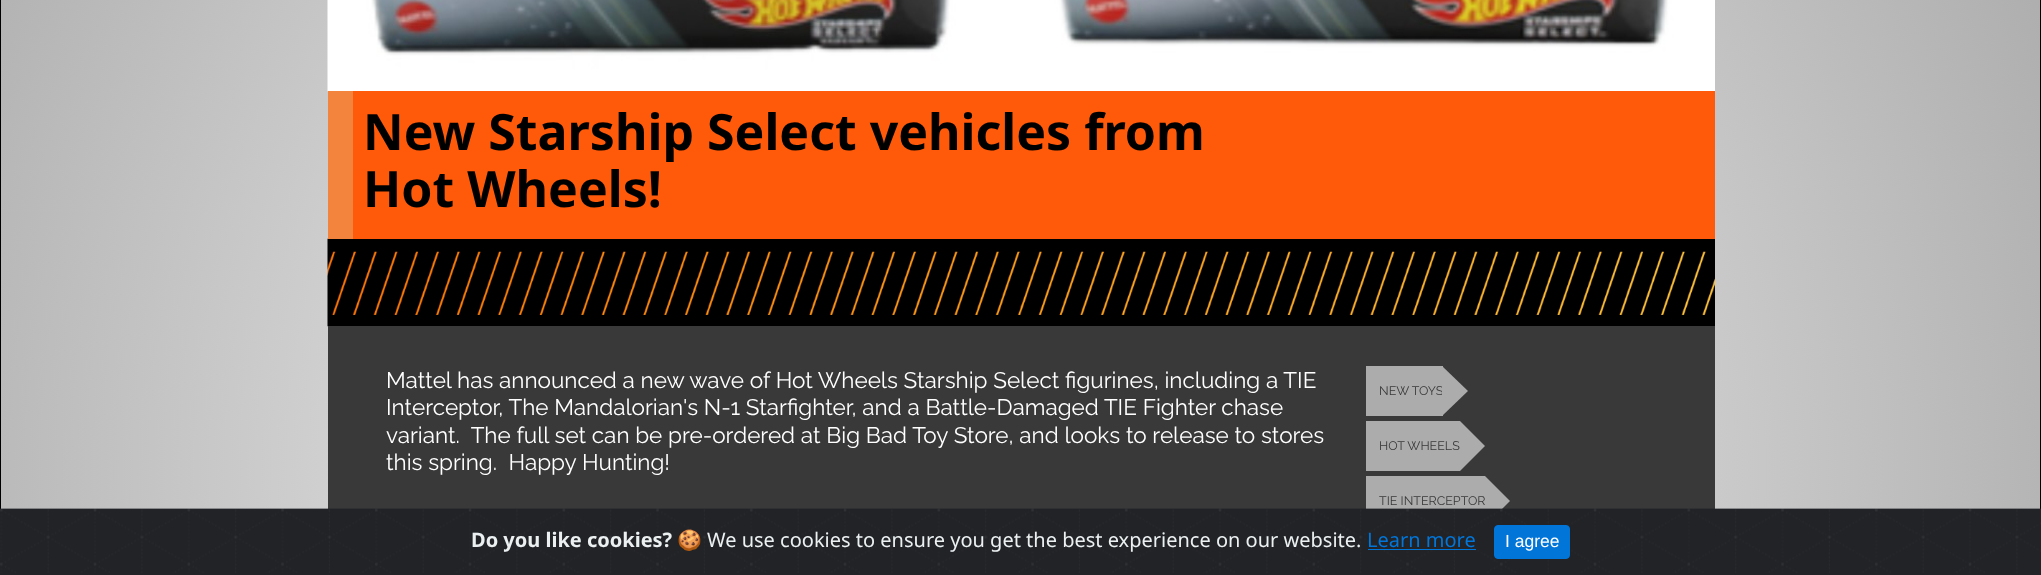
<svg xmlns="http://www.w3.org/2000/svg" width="2041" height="575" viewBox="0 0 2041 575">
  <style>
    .t1 { font: bold 50px Noto Sans; fill: #000; }
    .t2 { font: 22.5px Raleway; fill: #fff; }
    .t3 { font: 12.5px Raleway; fill: #393939; }
    .t4 { font: bold 20px Noto Sans; fill: #ecf0f1; }
    .t5 { font: 20px Noto Color Emoji; fill: #ecf0f1; }
    .t6 { font: 20px Noto Sans; fill: #ecf0f1; }
    .t7 { font: 20px Noto Sans; fill: #0275d8; }
    .t8 { font: 17.5px Liberation Sans; fill: #fff; }
  </style>
  <defs>
    <radialGradient id="g1" gradientUnits="userSpaceOnUse" cx="980" cy="466" r="1569"><stop offset="0" stop-color="#fafafa"/><stop offset="0.91" stop-color="#9d9d9d"/></radialGradient>
  </defs>
  <rect width="100%" height="100%" fill="#fff"/>
  <rect x="1" y="0" width="2039" height="509" fill="url(#g1)"/>
  <rect x="0.5" y="-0.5" width="2040" height="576" fill="none" stroke="#000"/>
  <image x="327" y="0" width="1388" height="92" href="images/1.png"/>
  <image x="327" y="238" width="1388" height="89" href="images/2.png"/>
  <rect x="353" y="91" width="1362" height="148" fill="#ff5a09"/>
  <rect x="328" y="91" width="25" height="148" fill="#f3843e"/>
  <text x="363" y="150" class="t1">New Starship Select vehicles from</text>
  <text x="363" y="207" class="t1">Hot Wheels!</text>
  <rect x="328" y="326" width="1387" height="183" fill="#393939"/>
  <text x="386" y="388" class="t2">Mattel has announced a new wave of Hot Wheels Starship Select figurines, including a TIE</text>
  <text x="386" y="415" class="t2">Interceptor, The Mandalorian's N-1 Starfighter, and a Battle-Damaged TIE Fighter chase</text>
  <text x="386" y="443" class="t2" xml:space="preserve">variant.  The full set can be pre-ordered at Big Bad Toy Store, and looks to release to stores</text>
  <text x="386" y="470" class="t2" xml:space="preserve">this spring.  Happy Hunting!</text>
  <rect x="1366" y="366" width="77" height="50" fill="#acacac"/>
  <text x="1379" y="395" class="t3">NEW TOYS</text>
  <path d="M1442 416V366L1468 391Z" fill="#acacac"/>
  <rect x="1366" y="421" width="94" height="50" fill="#acacac"/>
  <text x="1379" y="450" class="t3">HOT WHEELS</text>
  <path d="M1460 471V421L1485 446Z" fill="#acacac"/>
  <rect x="1366" y="476" width="119" height="33" fill="#acacac"/>
  <text x="1379" y="505" class="t3">TIE INTERCEPTOR</text>
  <path d="M1485 526V476L1510 501Z" fill="#acacac"/>
  <rect x="0" y="509" width="2041" height="66" fill="#212327"/>
  <image x="0" y="508" width="2041" height="65" href="images/3.png"/>
  <text x="471" y="547" class="t4">Do you like cookies?</text>
  <text x="677" y="547" class="t5">🍪</text>
  <text x="707" y="547" class="t6">We use cookies to ensure you get the best experience on our website.</text>
  <text x="1367" y="547" class="t7">Learn more</text>
  <rect x="1368" y="549" width="108" height="1" fill="#0275d8"/>
  <rect x="1494.5" y="525.5" width="75" height="33" rx="3.5" fill="#0275d8" stroke="#0275d8"/>
  <text x="1505" y="547" class="t8">I agree</text>
</svg>
